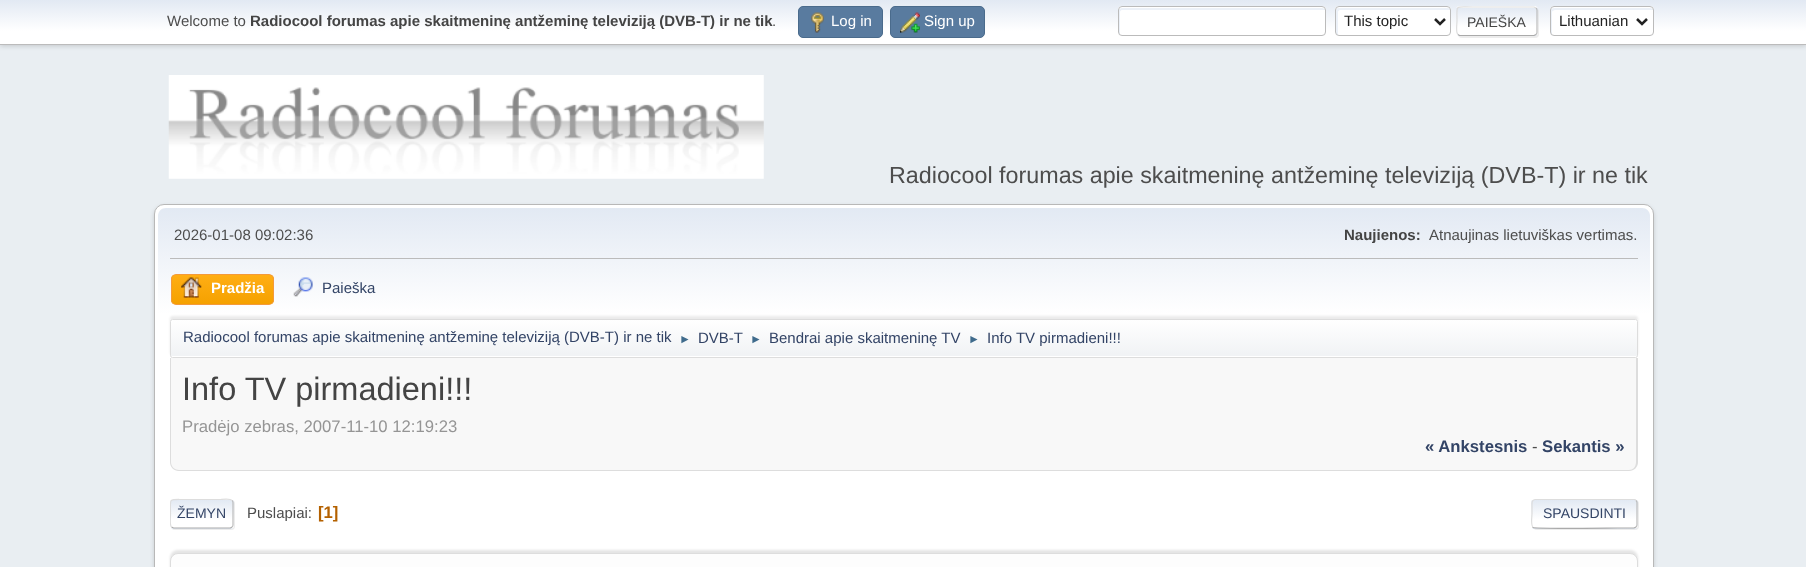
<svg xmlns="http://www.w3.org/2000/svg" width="1806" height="567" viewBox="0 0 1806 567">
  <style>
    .t1 { font: 15px Liberation Sans; fill: #4d4d4d; }
    .t2 { font: bold 15px Liberation Sans; fill: #444; }
    .t3 { font: 15px Liberation Sans; fill: #fff; }
    .t4 { font: 15px Liberation Sans; fill: #222; }
    .t5 { font: 14px Liberation Sans; fill: #444; }
    .t6 { font: 23.3px Liberation Sans; fill: #4d4d4d; }
    .t7 { font: bold 15px Liberation Sans; fill: #fff; }
    .t8 { font: 15px Liberation Sans; fill: #346; }
    .t9 { font: 12px Liberation Sans; fill: #3f6b8c; }
    .t10 { font: 32.5px Liberation Sans; fill: #444; }
    .t11 { font: 16.7px Liberation Sans; fill: #959595; }
    .t12 { font: bold 16.7px Liberation Sans; fill: #346; }
    .t13 { font: 16.7px Liberation Sans; fill: #4d4d4d; }
    .t14 { font: 14px Liberation Sans; fill: #346; }
    .t15 { font: bold 16.7px Liberation Sans; fill: #b46100; }
  </style>
  <defs>
    <linearGradient id="g1" gradientUnits="userSpaceOnUse" x1="903" y1="0" x2="903" y2="44"><stop offset="0" stop-color="#e2e9f3"/><stop offset="0.7" stop-color="#fff"/></linearGradient>
    <clipPath id="clip1"><rect x="1456" y="6" width="82" height="30" rx="4"/></clipPath>
    <linearGradient id="g2" gradientUnits="userSpaceOnUse" x1="1497" y1="-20" x2="1497" y2="7.5"><stop offset="0" stop-color="#e2e9f3"/><stop offset="0.7" stop-color="#fff"/></linearGradient>
    <linearGradient id="g3" gradientUnits="userSpaceOnUse" x1="1497" y1="7.5" x2="1497" y2="35"><stop offset="0" stop-color="#e2e9f3"/><stop offset="0.7" stop-color="#fff"/></linearGradient>
    <linearGradient id="g4" gradientUnits="userSpaceOnUse" x1="1497" y1="35" x2="1497" y2="63"><stop offset="0" stop-color="#e2e9f3"/><stop offset="0.7" stop-color="#fff"/></linearGradient>
    <linearGradient id="g5" gradientUnits="userSpaceOnUse" x1="904" y1="207" x2="904" y2="360"><stop offset="0" stop-color="#e2e9f3"/><stop offset="0.7" stop-color="#fff"/></linearGradient>
    <clipPath id="clip2"><rect x="171" y="274" width="103" height="31" rx="5"/></clipPath>
    <linearGradient id="g6" gradientUnits="userSpaceOnUse" x1="223" y1="275" x2="223" y2="304"><stop offset="0" stop-color="#ffae14"/><stop offset="1" stop-color="#f5a100"/></linearGradient>
    <linearGradient id="g7" gradientUnits="userSpaceOnUse" x1="904" y1="320" x2="904" y2="356"><stop offset="0" stop-color="#fff"/><stop offset="0.95" stop-color="#f1f3f5"/></linearGradient>
    <clipPath id="clip3"><rect x="170" y="499" width="64" height="30" rx="4"/></clipPath>
    <linearGradient id="g8" gradientUnits="userSpaceOnUse" x1="202" y1="500" x2="202" y2="528"><stop offset="0" stop-color="#e2e9f3"/><stop offset="0.7" stop-color="#fff"/></linearGradient>
    <linearGradient id="g9" gradientUnits="userSpaceOnUse" x1="202" y1="528" x2="202" y2="555"><stop offset="0" stop-color="#e2e9f3"/><stop offset="0.7" stop-color="#fff"/></linearGradient>
    <clipPath id="clip4"><rect x="170" y="490" width="1468" height="48"/></clipPath>
    <clipPath id="clip5"><rect x="1531" y="499" width="107" height="30" rx="4"/></clipPath>
    <linearGradient id="g10" gradientUnits="userSpaceOnUse" x1="1584" y1="500" x2="1584" y2="528"><stop offset="0" stop-color="#e2e9f3"/><stop offset="0.7" stop-color="#fff"/></linearGradient>
    <linearGradient id="g11" gradientUnits="userSpaceOnUse" x1="1584" y1="528" x2="1584" y2="555"><stop offset="0" stop-color="#e2e9f3"/><stop offset="0.7" stop-color="#fff"/></linearGradient>
  </defs>
  <rect width="100%" height="100%" fill="#e9eef2"/>
  <rect x="0" y="1" width="1806" height="45" fill="#00000029" filter="blur(2.5px)"/>
  <rect x="0" y="0" width="1806" height="44" fill="url(#g1)"/>
  <rect x="0" y="44" width="1806" height="1" fill="#bbb"/>
  <text x="167" y="26" class="t1">Welcome to</text>
  <text x="250" y="26" class="t2">Radiocool forumas apie skaitmeninę antžeminę televiziją (DVB-T) ir ne tik</text>
  <text x="772" y="26" class="t1">.</text>
  <rect x="798.5" y="6.5" width="84" height="31" rx="4.5" fill="#597b9f" stroke="#4a6b8c"/>
  <image x="811" y="12" width="13" height="21" href="images/1.png"/>
  <text x="831" y="26" class="t3">Log in</text>
  <rect x="890.5" y="6.5" width="94" height="31" rx="4.5" fill="#597b9f" stroke="#4a6b8c"/>
  <image x="900" y="12" width="20" height="21" href="images/2.png"/>
  <text x="924" y="26" class="t3">Sign up</text>
  <rect x="1118" y="6" width="208" height="30" rx="4" fill="#fff"/>
  <path d="M1122 10H1325C1325 9 1324 8 1322 8H1122C1120 8 1119 9 1119 10V32C1119 33 1119 34 1120 35V12C1120 11 1121 10 1122 10Z" fill="#ecf1f8"/>
  <rect x="1118.5" y="6.5" width="207" height="29" rx="3.5" fill="none" stroke="#bbb"/>
  <rect x="1335" y="6" width="116" height="30" rx="4" fill="#fff"/>
  <path d="M1340 10H1450C1450 9 1449 8 1448 8H1338C1337 8 1336 9 1336 10V32C1336 34 1337 35 1338 35V12C1338 11 1339 10 1340 10Z" fill="#ecf1f8"/>
  <rect x="1335.5" y="6.5" width="115" height="29" rx="3.5" fill="none" stroke="#bbb"/>
  <path d="M1435 19L1440 24L1445 19" fill="none" stroke="#222" stroke-width="2.5"/>
  <text x="1344" y="26" class="t4">This topic</text>
  <rect x="1458" y="8" width="81" height="30" rx="4" fill="#dddddd91" filter="blur(0.5px)"/>
  <g clip-path="url(#clip1)">
    <rect x="1456" y="6" width="82" height="2" fill="url(#g2)"/>
    <rect x="1456" y="8" width="82" height="27" fill="url(#g3)"/>
    <rect x="1456" y="35" width="82" height="1" fill="url(#g4)"/>
  </g>
  <path d="M1536 8C1536.5 8.5 1537 9 1537 10V32.5C1537 33.5 1536.5 34 1536 34.5" fill="none" stroke="#bbb" stroke-width="1.2"/>
  <path d="M1536 34.5L1534 35.5H1459.5L1458 34.5" fill="none" stroke="#aaa" stroke-width="1.2"/>
  <path d="M1458 34.5C1455.5 32.5 1457 24 1457 21C1457 4 1454.5 7 1472.5 7H1534L1536 8" fill="none" stroke="#ddd" stroke-width="1.2"/>
  <text x="1467" y="27" class="t5">PAIEŠKA</text>
  <rect x="1550" y="6" width="104" height="30" rx="4" fill="#fff"/>
  <path d="M1555 10H1651H1653C1653 9 1652 8 1650 8H1554C1552 8 1551 9 1551 10V32C1551 33 1551 34 1552 35V12C1552 11 1554 10 1555 10Z" fill="#ecf1f8"/>
  <rect x="1550.5" y="6.5" width="103" height="29" rx="3.5" fill="none" stroke="#bbb"/>
  <path d="M1637 19L1642 24L1647 19" fill="none" stroke="#222" stroke-width="2.5"/>
  <text x="1559" y="26" class="t4">Lithuanian</text>
  <image x="168" y="75" width="596" height="104" href="images/3.png"/>
  <text x="889" y="183" class="t6">Radiocool forumas apie skaitmeninę antžeminę televiziją (DVB-T) ir ne tik</text>
  <rect x="154" y="206" width="1500" height="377" rx="10" fill="#00000024" filter="blur(2px)"/>
  <rect x="154.5" y="204.5" width="1499" height="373" rx="9.5" fill="#fff" stroke="#b8b8b8"/>
  <path d="M166 208H1642C1646.5 208 1650 211.5 1650 216V360H158V216C158 211.5 161.5 208 166 208Z" fill="url(#g5)"/>
  <rect x="170" y="258" width="1468" height="1" fill="#bbb"/>
  <text x="174" y="240" class="t1">2026-01-08 09:02:36</text>
  <text x="1344" y="240" class="t2">Naujienos:</text>
  <text x="1429" y="240" class="t1">Atnaujinas lietuviškas vertimas.</text>
  <g clip-path="url(#clip2)">
    <rect x="171" y="275" width="103" height="29" fill="url(#g6)"/>
  </g>
  <rect x="171.5" y="274.5" width="102" height="30" rx="4.5" fill="none" stroke="#f49a3a"/>
  <image x="181" y="277" width="21" height="21" href="images/4.png"/>
  <text x="211" y="293" class="t7">Pradžia</text>
  <image x="293" y="277" width="20" height="20" href="images/5.png"/>
  <text x="322" y="293" class="t8">Paieška</text>
  <rect x="170" y="316" width="1468" height="39" rx="2.5" fill="#00000014" filter="blur(1px)"/>
  <rect x="170" y="319" width="1468" height="39" rx="2.5" fill="#fff"/>
  <rect x="170" y="320" width="1468" height="36" fill="url(#g7)"/>
  <rect x="170.5" y="319.5" width="1467" height="38" rx="2" fill="none" stroke="#ddd"/>
  <text x="183" y="342" class="t8">Radiocool forumas apie skaitmeninę antžeminę televiziją (DVB-T) ir ne tik</text>
  <text x="679" y="343" class="t9">►</text>
  <text x="698" y="343" class="t8">DVB-T</text>
  <text x="750" y="343" class="t9">►</text>
  <text x="769" y="343" class="t8">Bendrai apie skaitmeninę TV</text>
  <text x="968" y="343" class="t9">►</text>
  <text x="987" y="343" class="t8">Info TV pirmadieni!!!</text>
  <path d="M170 358H1638V462C1638 467 1634 471 1629 471H179C174 471 170 467 170 462Z" fill="#f8f8f8"/>
  <path d="M170 358H1638V462C1638 467 1634 471 1629 471H179C174 471 170 467 170 462ZM171 358H1636V462C1636 467 1633 470 1629 470H179C175 470 171 467 171 462Z" fill="#ddd" fill-rule="evenodd"/>
  <text x="182" y="400" class="t10">Info TV pirmadieni!!!</text>
  <text x="182" y="432" class="t11">Pradėjo zebras, 2007-11-10 12:19:23</text>
  <text x="1425" y="452" class="t12">« Ankstesnis</text>
  <text x="1532" y="452" class="t13">-</text>
  <text x="1542" y="452" class="t12">Sekantis »</text>
  <rect x="171" y="500" width="64" height="30" rx="4" fill="#dddddd91" filter="blur(0.5px)"/>
  <rect x="170" y="499" width="64" height="30" rx="4" fill="#fff"/>
  <g clip-path="url(#clip3)">
    <rect x="170" y="500" width="64" height="28" fill="url(#g8)"/>
    <rect x="170" y="528" width="64" height="1" fill="url(#g9)"/>
  </g>
  <path d="M232 500.5C233 501 233 501.5 233 502.5V525C233 526 233 526.5 232 527" fill="none" stroke="#bbb" stroke-width="1.2"/>
  <path d="M232 527L230.5 528H173.5L171.5 527" fill="none" stroke="#aaa" stroke-width="1.2"/>
  <g clip-path="url(#clip4)">
    <path d="M171.5 527C169.5 525 170.5 516.5 170.5 514C170.5 498 168 499.5 183 499.5H220.5C221.5 499.5 230 498 232 500.5" fill="none" stroke="#ddd" stroke-width="1.2"/>
  </g>
  <text x="177" y="518" class="t14">ŽEMYN</text>
  <text x="247" y="518" class="t1">Puslapiai:</text>
  <text x="318" y="518" class="t15">[1]</text>
  <rect x="1533" y="500" width="106" height="30" rx="4" fill="#dddddd91" filter="blur(0.5px)"/>
  <g clip-path="url(#clip5)">
    <rect x="1531" y="500" width="107" height="28" fill="url(#g10)"/>
    <rect x="1531" y="528" width="107" height="1" fill="url(#g11)"/>
  </g>
  <path d="M1636 500.5C1636.5 501 1637 501.5 1637 502.5V525C1637 526 1636.5 526.5 1636 527" fill="none" stroke="#bbb" stroke-width="1.2"/>
  <path d="M1636 527L1634 528H1617.5C1608.5 528 1535 529 1533 527.5V527" fill="none" stroke="#aaa" stroke-width="1.2"/>
  <path d="M1533 527C1530.5 525 1532 516.5 1532 514V506C1532 504 1531.5 499.5 1535 499.5H1617.5H1635L1636 500.5" fill="none" stroke="#ddd" stroke-width="1.2"/>
  <text x="1543" y="518" class="t14">SPAUSDINTI</text>
  <rect x="170" y="550" width="1468" height="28" rx="8" fill="#0000001a" filter="blur(1px)"/>
  <rect x="170.5" y="553.5" width="1467" height="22" rx="7.5" fill="#fdfdfd" stroke="#ddd"/>
</svg>
